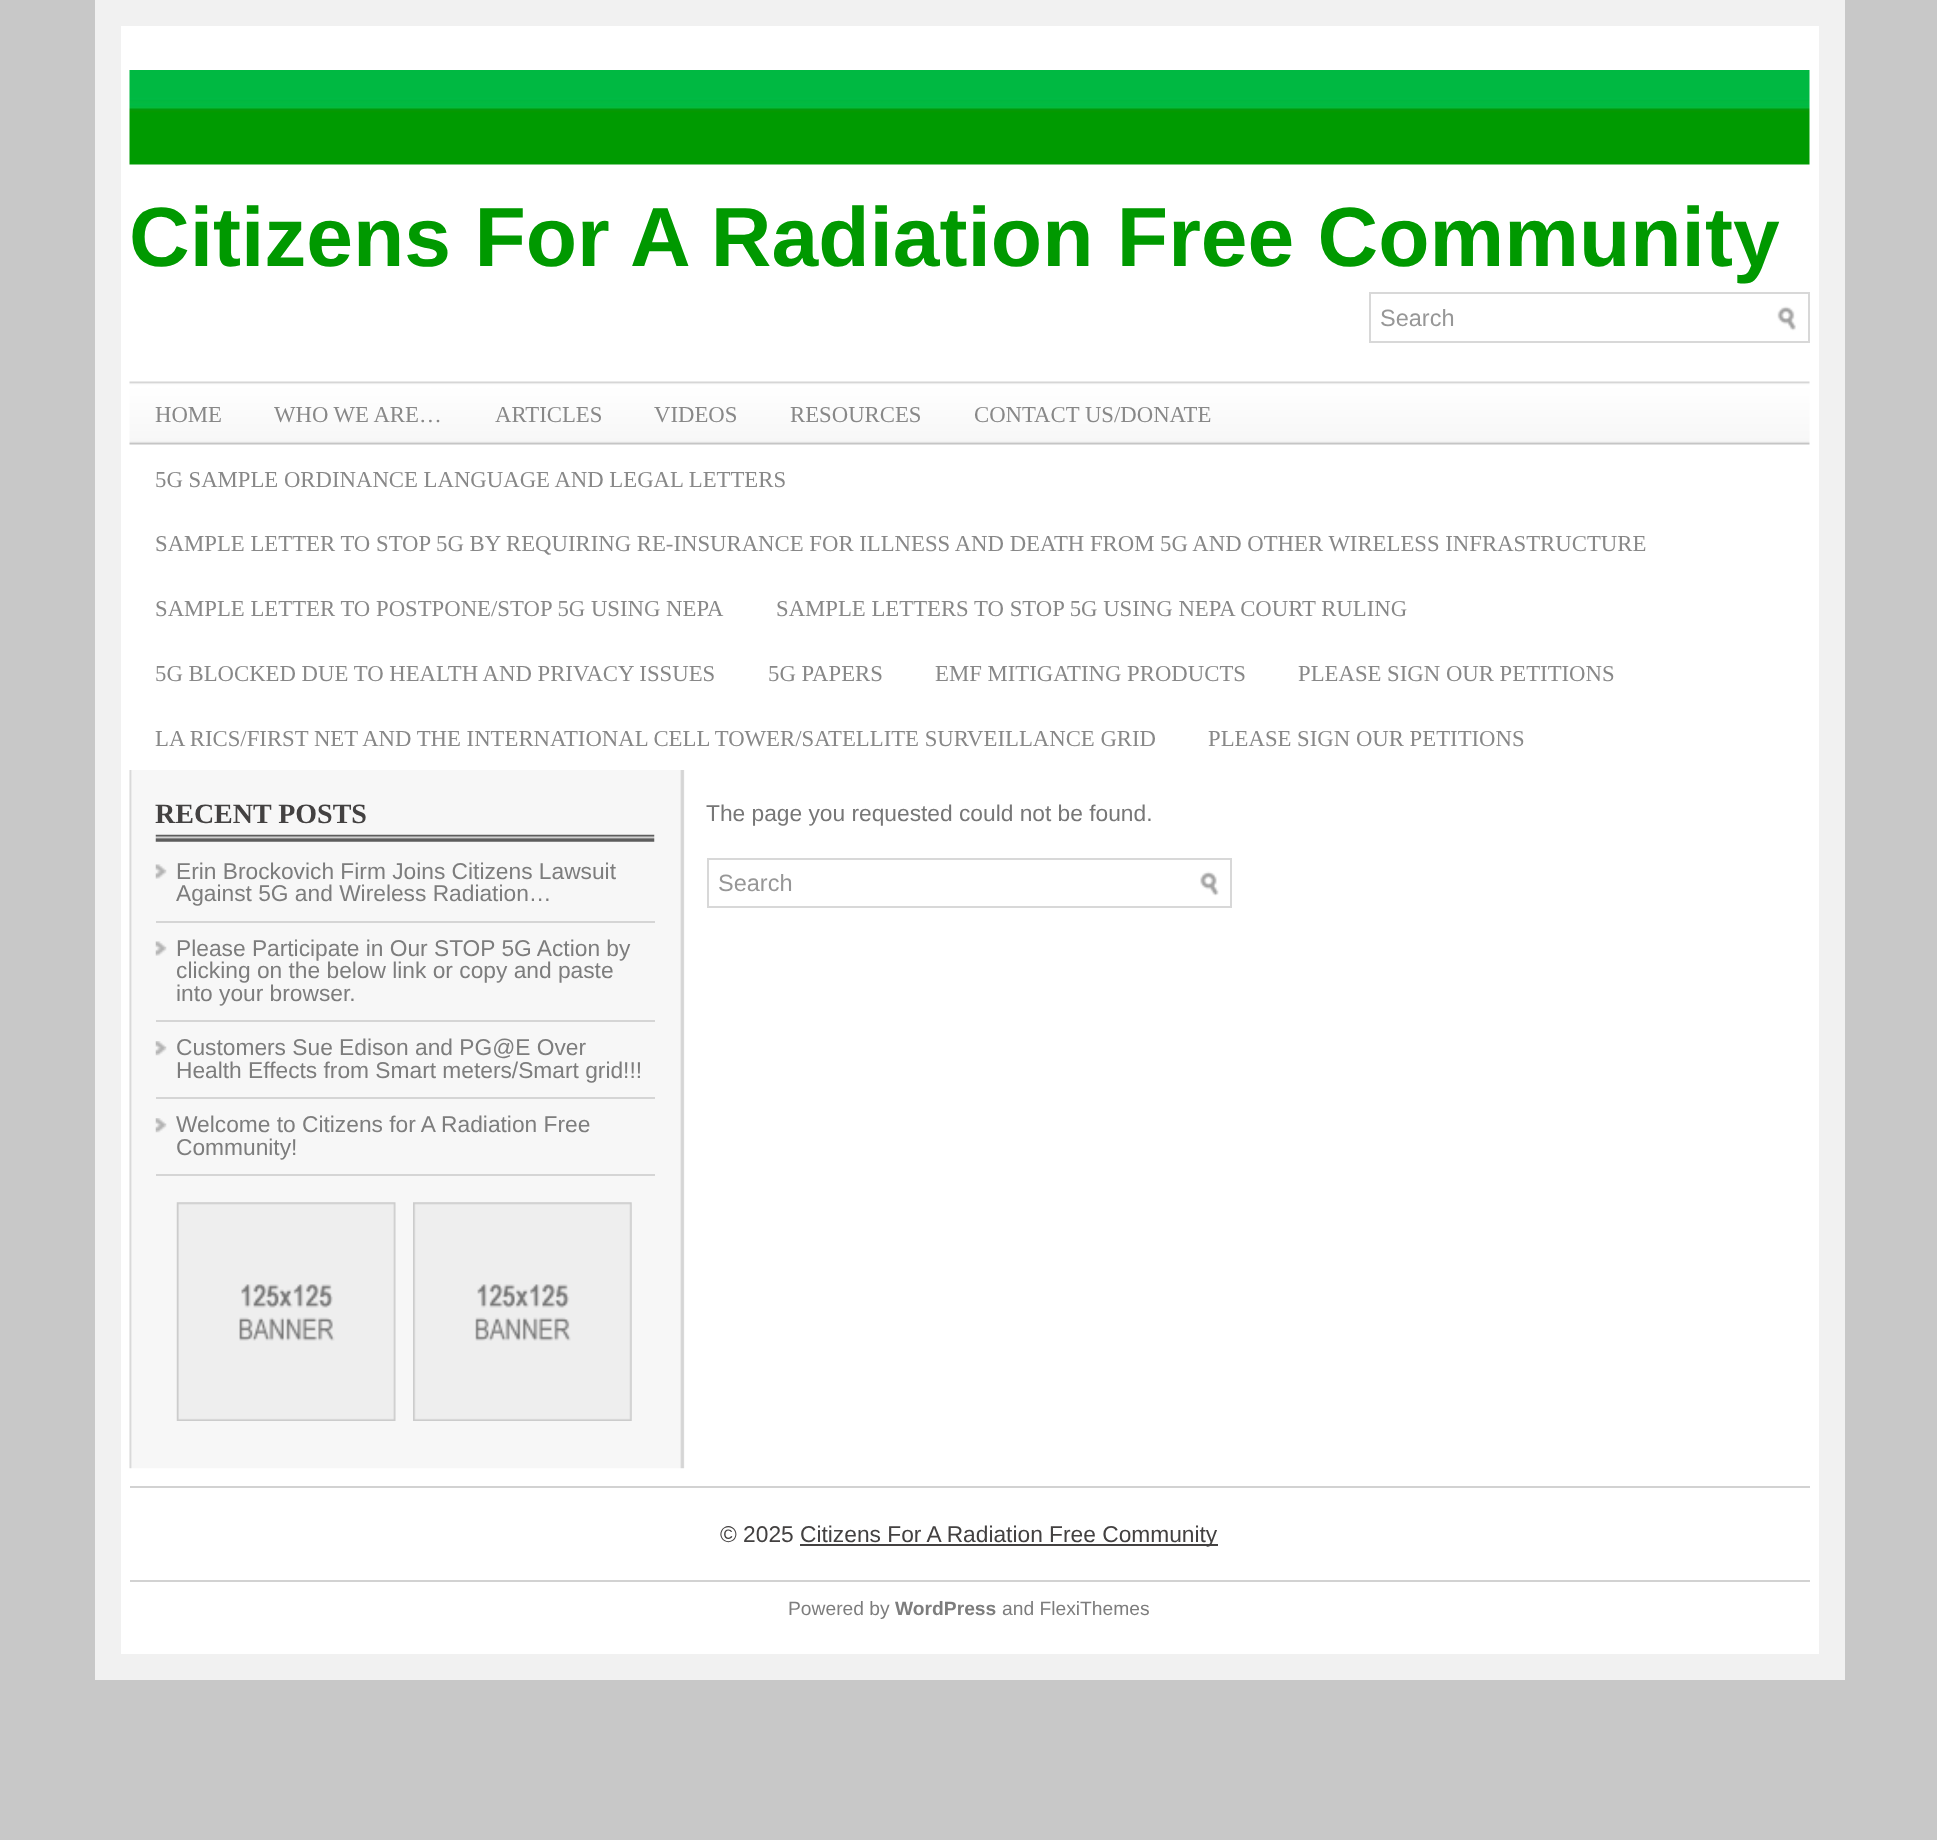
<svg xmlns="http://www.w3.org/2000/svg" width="1937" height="1840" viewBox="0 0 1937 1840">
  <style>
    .t1 { font: bold 84px Liberation Sans; fill: #090; }
    .t2 { font: 23.5px Liberation Sans; fill: #979797; }
    .t3 { font: 22.75px Liberation Serif; fill: #888; }
    .t4 { font: bold 28px Liberation Serif; fill: #434141; }
    .t5 { font: 22.75px Liberation Sans; fill: #7d7d7d; }
    .t6 { font: 22.75px Liberation Sans; fill: #777; }
    .t7 { font: 22.75px Liberation Sans; fill: #434141; }
    .t8 { font: 19.25px Liberation Sans; fill: #7d7d7d; }
    .t9 { font: bold 19.25px Liberation Sans; fill: #7d7d7d; }
  </style>
  <rect width="100%" height="100%" fill="#c8c8c8"/>
  <rect x="108" y="13" width="1724" height="1654" fill="#fff" stroke="#f1f1f1" stroke-width="26"/>
  <image x="129" y="70" width="1681" height="95" href="images/1.png"/>
  <text x="129" y="266" class="t1">Citizens For A Radiation Free Community</text>
  <image x="1777" y="306" width="19" height="25" href="images/2.png"/>
  <rect x="1370" y="293" width="439" height="49" fill="none" stroke="#d8d8d8" stroke-width="2"/>
  <text x="1380" y="326" class="t2">Search</text>
  <image x="129" y="381" width="1681" height="64" href="images/3.png"/>
  <text x="155" y="422" class="t3">HOME</text>
  <text x="274" y="422" class="t3">WHO WE ARE…</text>
  <text x="495" y="422" class="t3">ARTICLES</text>
  <text x="654" y="422" class="t3">VIDEOS</text>
  <text x="790" y="422" class="t3">RESOURCES</text>
  <text x="974" y="422" class="t3">CONTACT US/DONATE</text>
  <text x="155" y="487" class="t3">5G SAMPLE ORDINANCE LANGUAGE AND LEGAL LETTERS</text>
  <text x="155" y="551" class="t3">SAMPLE LETTER TO STOP 5G BY REQUIRING RE-INSURANCE FOR ILLNESS AND DEATH FROM 5G AND OTHER WIRELESS INFRASTRUCTURE</text>
  <text x="155" y="616" class="t3">SAMPLE LETTER TO POSTPONE/STOP 5G USING NEPA</text>
  <text x="776" y="616" class="t3">SAMPLE LETTERS TO STOP 5G USING NEPA COURT RULING</text>
  <text x="155" y="681" class="t3">5G BLOCKED DUE TO HEALTH AND PRIVACY ISSUES</text>
  <text x="768" y="681" class="t3">5G PAPERS</text>
  <text x="935" y="681" class="t3">EMF MITIGATING PRODUCTS</text>
  <text x="1298" y="681" class="t3">PLEASE SIGN OUR PETITIONS</text>
  <text x="155" y="746" class="t3">LA RICS/FIRST NET AND THE INTERNATIONAL CELL TOWER/SATELLITE SURVEILLANCE GRID</text>
  <text x="1208" y="746" class="t3">PLEASE SIGN OUR PETITIONS</text>
  <image x="129" y="770" width="556" height="699" href="images/4.png"/>
  <image x="155" y="834" width="500" height="8" href="images/5.png"/>
  <text x="155" y="823" class="t4">RECENT POSTS</text>
  <image x="155" y="864" width="12" height="15" href="images/6.png"/>
  <rect x="156" y="921" width="499" height="2" fill="#d5d5d5"/>
  <text x="176" y="879" class="t5">Erin Brockovich Firm Joins Citizens Lawsuit</text>
  <text x="176" y="901" class="t5">Against 5G and Wireless Radiation…</text>
  <image x="155" y="941" width="12" height="15" href="images/6.png"/>
  <rect x="156" y="1020" width="499" height="2" fill="#d5d5d5"/>
  <text x="176" y="956" class="t5">Please Participate in Our STOP 5G Action by</text>
  <text x="176" y="978" class="t5">clicking on the below link or copy and paste</text>
  <text x="176" y="1001" class="t5">into your browser.</text>
  <image x="155" y="1041" width="12" height="15" href="images/7.png"/>
  <rect x="156" y="1097" width="499" height="2" fill="#d5d5d5"/>
  <text x="176" y="1055" class="t5">Customers Sue Edison and PG@E Over</text>
  <text x="176" y="1078" class="t5">Health Effects from Smart meters/Smart grid!!!</text>
  <image x="155" y="1118" width="12" height="15" href="images/7.png"/>
  <rect x="156" y="1174" width="499" height="2" fill="#d5d5d5"/>
  <text x="176" y="1132" class="t5">Welcome to Citizens for A Radiation Free</text>
  <text x="176" y="1155" class="t5">Community!</text>
  <image x="176" y="1202" width="220" height="219" href="images/8.png"/>
  <image x="413" y="1202" width="219" height="219" href="images/9.png"/>
  <text x="706" y="821" class="t6">The page you requested could not be found.</text>
  <image x="1200" y="871" width="19" height="25" href="images/10.png"/>
  <rect x="708" y="859" width="523" height="48" fill="none" stroke="#d8d8d8" stroke-width="2"/>
  <text x="718" y="891" class="t2">Search</text>
  <rect x="130" y="1486" width="1680" height="2" fill="#d2d2d2"/>
  <rect x="130" y="1580" width="1680" height="2" fill="#d2d2d2"/>
  <text x="720" y="1542" class="t7">© 2025</text>
  <rect x="800" y="1544" width="418" height="2" fill="#434141"/>
  <text x="800" y="1542" class="t7">Citizens For A Radiation Free Community</text>
  <text x="788" y="1615" class="t8">Powered by</text>
  <text x="895" y="1615" class="t9">WordPress</text>
  <text x="1002" y="1615" class="t8">and FlexiThemes</text>
</svg>
